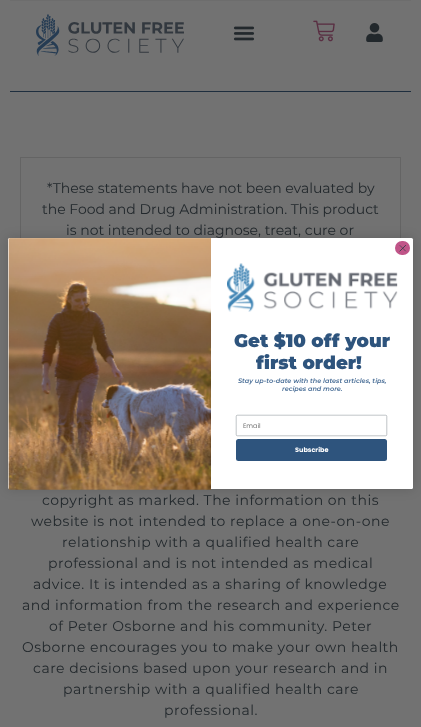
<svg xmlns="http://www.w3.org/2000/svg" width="421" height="727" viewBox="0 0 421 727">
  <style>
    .t1 { font: 14px Montserrat; fill: #22282c; }
    .t2 { font: 14px Montserrat; letter-spacing: 0.5px; fill: #22282c; }
    .t3 { font: 900 18.25px Montserrat; fill: #2e547d; }
    .t4 { font: italic 600 6.5px Montserrat; fill: #486d96; }
    .t5 { font: 6.5px Poppins; fill: #767676; }
    .t6 { font: bold 6.5px Poppins; fill: #fff; }
  </style>
  <rect width="100%" height="100%" fill="#727272"/>
  <rect x="10" y="0" width="401" height="1" fill="#6d6d6d"/>
  <image x="36" y="14" width="148" height="42" href="images/1.png"/>
  <image x="233" y="26" width="22" height="15" href="images/2.png"/>
  <image x="313" y="20" width="22" height="22" href="images/3.png"/>
  <image x="366" y="23" width="17" height="19" href="images/4.png"/>
  <rect x="10" y="91" width="401" height="1" fill="#1e2e3e"/>
  <rect x="20.5" y="157.5" width="380" height="208" fill="none" stroke="#646464"/>
  <text x="47" y="193" class="t1">*These statements have not been evaluated by</text>
  <text x="42" y="214" class="t1">the Food and Drug Administration. This product</text>
  <text x="66" y="235" class="t1">is not intended to diagnose, treat, cure or</text>
  <text x="42" y="505" class="t2">copyright as marked. The information on this</text>
  <text x="31" y="526" class="t2">website is not intended to replace a one-on-one</text>
  <text x="62" y="547" class="t2">relationship with a qualified health care</text>
  <text x="48" y="568" class="t2">professional and is not intended as medical</text>
  <text x="33" y="589" class="t2">advice. It is intended as a sharing of knowledge</text>
  <text x="22" y="610" class="t2">and information from the research and experience</text>
  <text x="49" y="631" class="t2">of Peter Osborne and his community. Peter</text>
  <text x="22" y="652" class="t2">Osborne encourages you to make your own health</text>
  <text x="33" y="673" class="t2">care decisions based upon your research and in</text>
  <text x="63" y="694" class="t2">partnership with a qualified health care</text>
  <text x="164" y="715" class="t2">professional.</text>
  <rect x="8" y="238" width="405" height="251" rx="1.5" fill="#00000026" filter="blur(6px)"/>
  <rect x="8" y="238" width="405" height="251" rx="1.5" fill="#fff"/>
  <rect x="395" y="241" width="15" height="14" rx="7" fill="#c05488"/>
  <path d="M400 245.5L405.5 251M400 251L405.5 245.5Z" fill="none" stroke="#373f47" stroke-width="0.7" stroke-linecap="round" stroke-linejoin="round"/>
  <image x="8" y="238" width="203" height="252" href="images/5.png"/>
  <image x="227" y="263" width="171" height="49" href="images/6.png"/>
  <text x="234" y="347" class="t3">Get $10 off your</text>
  <text x="256" y="369" class="t3">first order!</text>
  <text x="238" y="383" class="t4">Stay up-to-date with the latest articles, tips,</text>
  <text x="282" y="391" class="t4">recipes and more.</text>
  <rect x="236.2" y="415.2" width="150.6" height="20.6" rx="1.3" fill="none" stroke="#606a72" stroke-width="0.4"/>
  <text x="243" y="428" class="t5">Email</text>
  <rect x="236" y="439" width="151" height="22" rx="2.5" fill="#2e547d"/>
  <text x="295" y="452" class="t6">Subscribe</text>
</svg>
